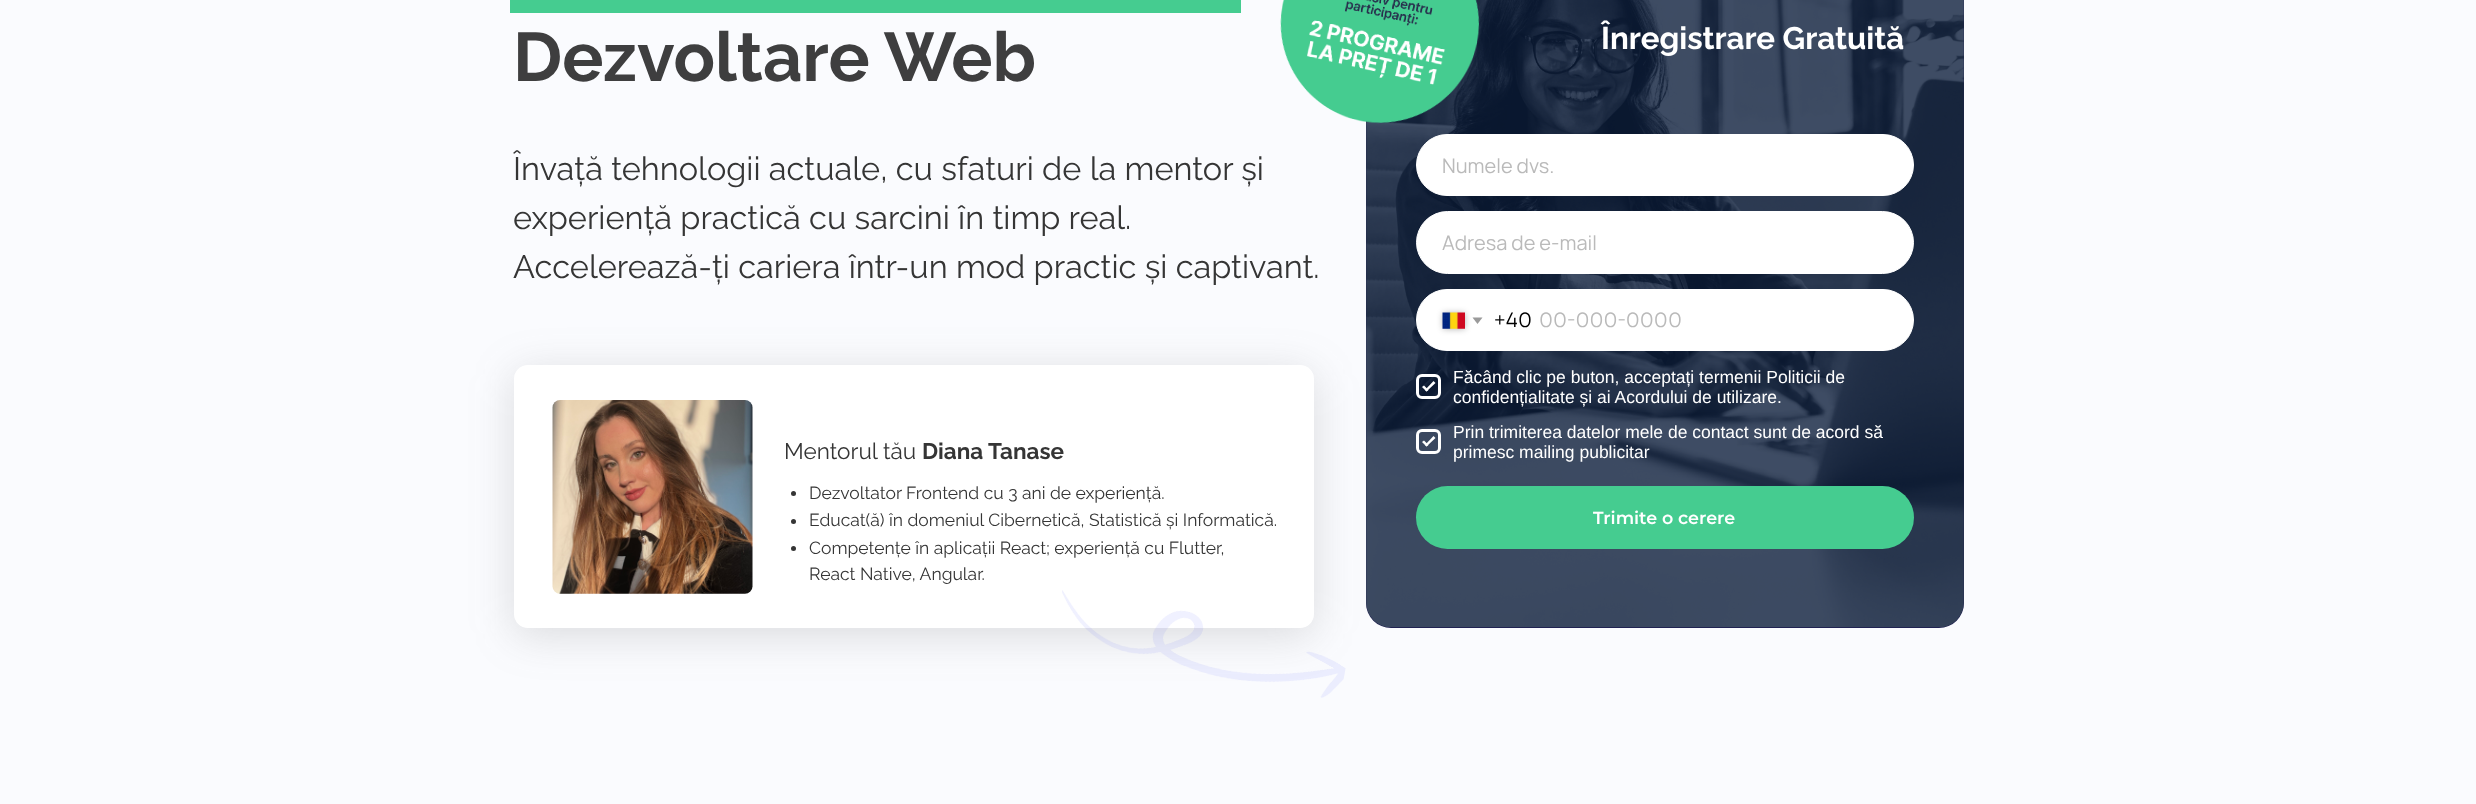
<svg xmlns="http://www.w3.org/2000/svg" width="2476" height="804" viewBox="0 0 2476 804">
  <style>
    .t1 { font: bold 68.75px Raleway; fill: #3e3e3f; }
    .t2 { font: bold 31.25px Raleway; fill: #fff; }
    .t3 { font: 32.5px Raleway; fill: #353535; }
    .t4 { font: 20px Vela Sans; fill: #bababa; }
    .t5 { font: 20px Vela Sans; fill: #000; }
    .t6 { font: 17.5px Liberation Sans; fill: #fff; }
    .t7 { font: 600 17.5px Montserrat; fill: #fff; }
    .t8 { font: 22.5px Raleway; fill: #353535; }
    .t9 { font: bold 22.5px Raleway; fill: #353535; }
    .t10 { font: 17.5px Raleway; fill: #353535; }
  </style>
  <rect width="100%" height="100%" fill="#fafbfe"/>
  <rect x="510" y="0" width="731" height="13" fill="#45cc90"/>
  <rect x="1366" y="-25" width="598" height="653" rx="25" fill="#202252"/>
  <image x="1366" y="0" width="598" height="627" href="images/1.png"/>
  <text x="513" y="81" class="t1">Dezvoltare Web</text>
  <image x="1280" y="0" width="200" height="124" href="images/2.png"/>
  <text x="1601" y="49" class="t2">Înregistrare Gratuită</text>
  <text x="513" y="180" class="t3">Învață tehnologii actuale, cu sfaturi de la mentor și</text>
  <text x="513" y="229" class="t3">experiență practică cu sarcini în timp real.</text>
  <text x="513" y="278" class="t3">Accelerează-ți cariera într-un mod practic și captivant.</text>
  <rect x="1416.5" y="134.5" width="497" height="61" rx="30.5" fill="#fff" stroke="#fff"/>
  <text x="1442" y="173" class="t4">Numele dvs.</text>
  <rect x="1416.5" y="211.5" width="497" height="62" rx="31" fill="#fff" stroke="#fff"/>
  <text x="1442" y="250" class="t4">Adresa de e-mail</text>
  <rect x="1416.5" y="289.5" width="497" height="61" rx="30.5" fill="#fff" stroke="#fff"/>
  <rect x="1443" y="313" width="22" height="16" fill="#0000004d" filter="blur(3px)"/>
  <image x="1442" y="312" width="23" height="17" href="images/3.png"/>
  <path d="M1472.5 317.5H1482.5L1477.5 324Z" fill="#9a9a9a"/>
  <text x="1494" y="327" class="t5">+40</text>
  <text x="1539" y="327" class="t4">00-000-0000</text>
  <rect x="1417.5" y="375.5" width="22" height="22" rx="4.5" fill="none" stroke="#fff" stroke-width="3"/>
  <path d="M1433.5 381L1435.5 383L1426.5 391.5L1425 390Z" fill="#fff"/>
  <path d="M1424 385.5L1428.5 390L1426.5 391.5L1422 387Z" fill="#fff"/>
  <text x="1453" y="383" class="t6">Făcând clic pe buton, acceptați termenii Politicii de</text>
  <text x="1453" y="403" class="t6">confidențialitate și ai Acordului de utilizare.</text>
  <rect x="1417.5" y="430.5" width="22" height="22" rx="4.5" fill="none" stroke="#fff" stroke-width="3"/>
  <path d="M1433.5 436L1435.5 438L1426.5 446.5L1425 445Z" fill="#fff"/>
  <path d="M1424 440.5L1428.5 445L1426.5 446.5L1422 442Z" fill="#fff"/>
  <text x="1453" y="438" class="t6">Prin trimiterea datelor mele de contact sunt de acord să</text>
  <text x="1453" y="458" class="t6">primesc mailing publicitar</text>
  <rect x="1416" y="486" width="498" height="63" rx="31.5" fill="#45cc90"/>
  <text x="1593" y="524" class="t7">Trimite o cerere</text>
  <rect x="514" y="373" width="800" height="262" rx="14" fill="#5b5b5b33" filter="blur(22px)"/>
  <rect x="514" y="365" width="800" height="263" rx="14" fill="#fff"/>
  <image x="552" y="400" width="201" height="194" href="images/4.png"/>
  <text x="784" y="459" class="t8">Mentorul tău</text>
  <text x="922" y="459" class="t9">Diana Tanase</text>
  <circle cx="793.5" cy="493.5" r="2.5" fill="#353535"/>
  <text x="809" y="499" class="t10">Dezvoltator Frontend cu 3 ani de experiență.</text>
  <circle cx="793.5" cy="521.5" r="2.5" fill="#353535"/>
  <text x="809" y="526" class="t10">Educat(ă) în domeniul Cibernetică, Statistică și Informatică.</text>
  <circle cx="793.5" cy="548.5" r="2.5" fill="#353535"/>
  <text x="809" y="554" class="t10">Competențe în aplicații React; experiență cu Flutter,</text>
  <text x="809" y="580" class="t10">React Native, Angular.</text>
  <image x="1062" y="590" width="284" height="108" href="images/5.png"/>
</svg>
